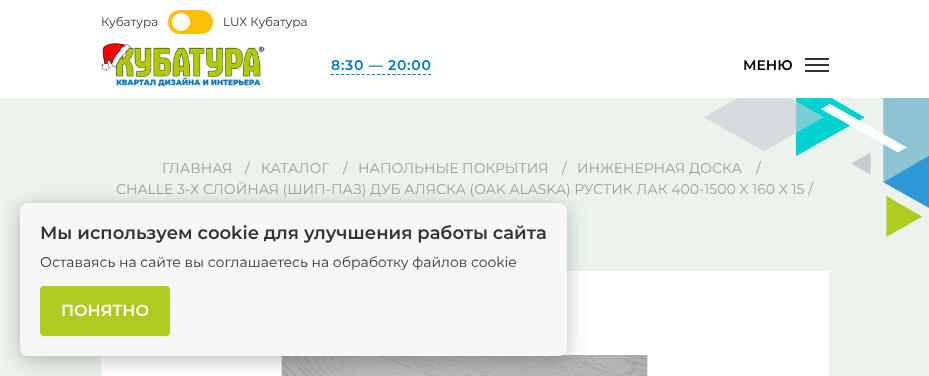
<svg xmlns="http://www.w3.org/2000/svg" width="929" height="376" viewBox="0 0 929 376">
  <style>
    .t1 { font: 12px Montserrat; fill: #333; }
    .t2 { font: 600 14px Montserrat; letter-spacing: 0.75px; fill: #0078bf; }
    .t3 { font: 600 14px Montserrat; fill: #000; }
    .t4 { font: 14px Montserrat; fill: #9f9f9f; }
    .t5 { font: 600 18px Montserrat; fill: #333; }
    .t6 { font: 14px Montserrat; fill: #333; }
    .t7 { font: 600 16px Montserrat; fill: #fff; }
  </style>
  <rect width="100%" height="100%" fill="#ecf3ec"/>
  <rect x="0" y="0" width="929" height="98" fill="#fff"/>
  <text x="101" y="26" class="t1">Кубатура</text>
  <rect x="168" y="10" width="45" height="24" rx="12" fill="#ffc107"/>
  <circle cx="181" cy="22" r="9" fill="#fff"/>
  <text x="223" y="26" class="t1">LUX Кубатура</text>
  <image x="101" y="42" width="164" height="45" href="images/1.png"/>
  <text x="331" y="70" class="t2">8:30 — 20:00</text>
  <path d="M331 74.5H431" fill="none" stroke="#0078bf" stroke-dasharray="3 2.11"/>
  <text x="743" y="70" class="t3">МЕНЮ</text>
  <rect x="805" y="58" width="24" height="2" fill="#333"/>
  <rect x="805" y="64" width="24" height="2" fill="#333"/>
  <rect x="805" y="70" width="24" height="2" fill="#333"/>
  <image x="704" y="98" width="225" height="139" href="images/2.png"/>
  <text x="162" y="173" class="t4">ГЛАВНАЯ</text>
  <text x="245" y="173" class="t4">/</text>
  <text x="261" y="173" class="t4">КАТАЛОГ</text>
  <text x="343" y="173" class="t4">/</text>
  <text x="358" y="173" class="t4">НАПОЛЬНЫЕ ПОКРЫТИЯ</text>
  <text x="562" y="173" class="t4">/</text>
  <text x="577" y="173" class="t4">ИНЖЕНЕРНАЯ ДОСКА</text>
  <text x="756" y="173" class="t4">/</text>
  <text x="116" y="194" class="t4">CHALLE 3-Х СЛОЙНАЯ (ШИП-ПАЗ) ДУБ АЛЯСКА (OAK ALASKA) РУСТИК ЛАК 400-1500 X 160 X 15 /</text>
  <rect x="101" y="271" width="728" height="105" fill="#fff"/>
  <image x="281" y="355" width="367" height="21" href="images/3.png"/>
  <rect x="20" y="207" width="547" height="153" rx="8" fill="#00000040" filter="blur(10px)"/>
  <rect x="20" y="203" width="547" height="153" rx="8" fill="#f7f7f7"/>
  <text x="40" y="239" class="t5">Мы используем cookie для улучшения работы сайта</text>
  <text x="40" y="267" class="t6">Оставаясь на сайте вы соглашаетесь на обработку файлов cookie</text>
  <rect x="40" y="286" width="130" height="50" rx="4" fill="#b0cb1f"/>
  <text x="61" y="316" class="t7">ПОНЯТНО</text>
</svg>
